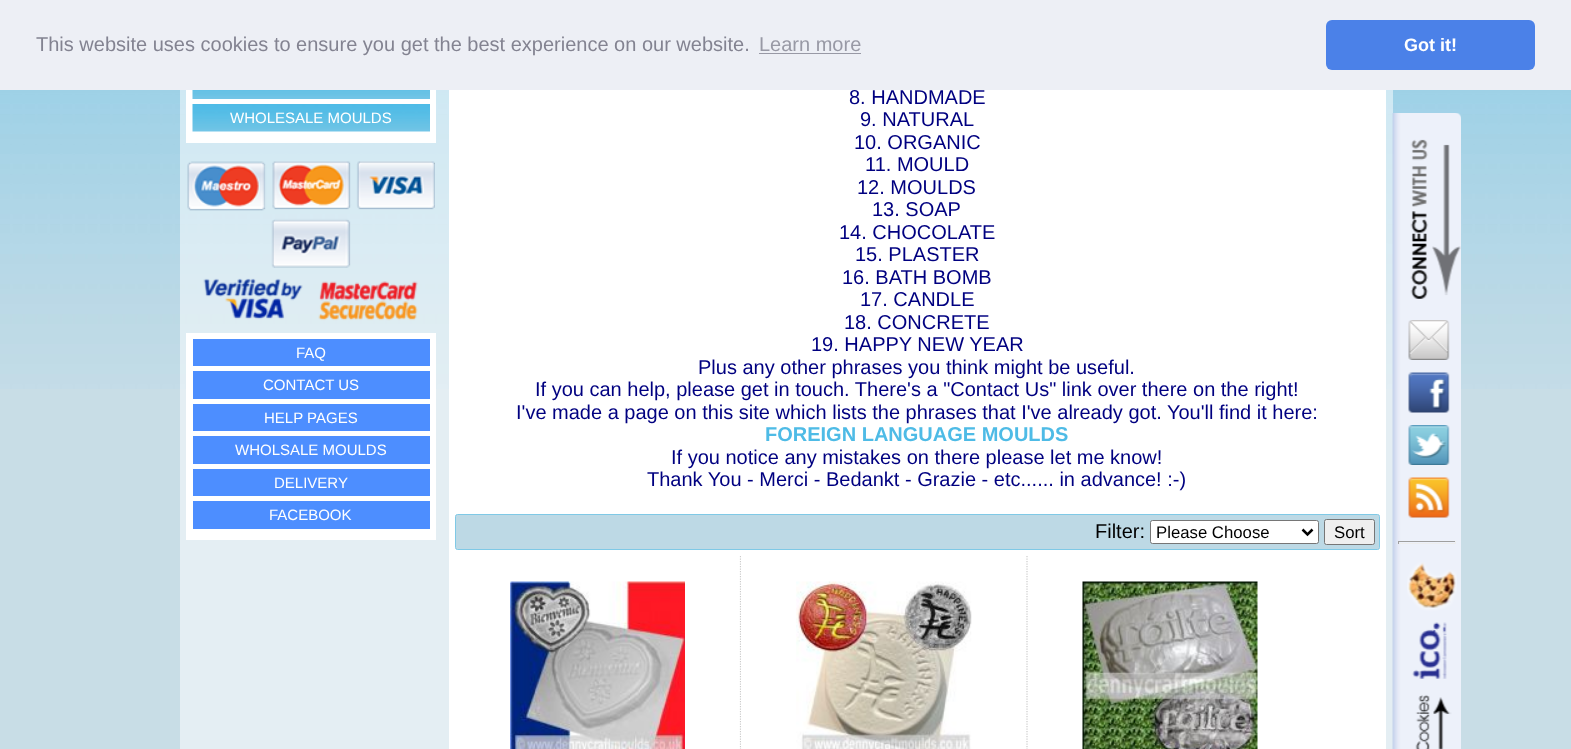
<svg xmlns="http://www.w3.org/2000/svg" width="1571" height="749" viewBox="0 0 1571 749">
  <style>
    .t1 { font: 20px Liberation Sans; fill: #838391; }
    .t2 { font: 20px Liberation Sans; fill: #9899a5; }
    .t3 { font: bold 18px Liberation Sans; fill: #fff; }
    .t4 { font: 15px Liberation Sans; fill: #fff; }
    .t5 { font: 20px Liberation Sans; fill: #000080; }
    .t6 { font: bold 20px Liberation Sans; fill: #4ebbe6; }
    .t7 { font: 20px Liberation Sans; fill: #000; }
    .t8 { font: 16.75px Liberation Sans; fill: #000; }
  </style>
  <rect width="100%" height="100%" fill="#c8dde6"/>
  <image x="0" y="90" width="1571" height="299" href="images/1.png"/>
  <rect x="0" y="0" width="1571" height="90" fill="#edeff5"/>
  <text x="36" y="51" class="t1">This website uses cookies to ensure you get the best experience on our website.</text>
  <text x="759" y="51" class="t2">Learn more</text>
  <rect x="759" y="53" width="102" height="1" fill="#9899a5"/>
  <rect x="1326" y="20" width="209" height="50" rx="6" fill="#4b81e8"/>
  <text x="1404" y="51" class="t3">Got it!</text>
  <rect x="180" y="90" width="1213" height="659" fill="#ffffff80"/>
  <rect x="186" y="90" width="250" height="53" fill="#fff"/>
  <image x="192" y="90" width="238" height="9" href="images/2.png"/>
  <image x="192" y="104" width="238" height="28" href="images/3.png"/>
  <text x="230" y="123" class="t4">WHOLESALE MOULDS</text>
  <image x="187" y="161" width="248" height="160" href="images/4.png"/>
  <rect x="186" y="333" width="250" height="207" fill="#fff"/>
  <rect x="193" y="339" width="237" height="27" fill="#4d8eff"/>
  <text x="296" y="358" class="t4">FAQ</text>
  <rect x="193" y="371" width="237" height="28" fill="#4d8eff"/>
  <text x="263" y="390" class="t4">CONTACT US</text>
  <rect x="193" y="404" width="237" height="27" fill="#4d8eff"/>
  <text x="264" y="423" class="t4">HELP PAGES</text>
  <rect x="193" y="436" width="237" height="28" fill="#4d8eff"/>
  <text x="235" y="455" class="t4">WHOLSALE MOULDS</text>
  <rect x="193" y="469" width="237" height="27" fill="#4d8eff"/>
  <text x="274" y="488" class="t4">DELIVERY</text>
  <rect x="193" y="501" width="237" height="28" fill="#4d8eff"/>
  <text x="269" y="520" class="t4">FACEBOOK</text>
  <rect x="449" y="90" width="937" height="659" fill="#fff"/>
  <text x="849" y="104" class="t5">8. HANDMADE</text>
  <text x="860" y="126" class="t5">9. NATURAL</text>
  <text x="854" y="149" class="t5">10. ORGANIC</text>
  <text x="865" y="171" class="t5">11. MOULD</text>
  <text x="857" y="194" class="t5">12. MOULDS</text>
  <text x="872" y="216" class="t5">13. SOAP</text>
  <text x="839" y="239" class="t5">14. CHOCOLATE</text>
  <text x="855" y="261" class="t5">15. PLASTER</text>
  <text x="842" y="284" class="t5">16. BATH BOMB</text>
  <text x="860" y="306" class="t5">17. CANDLE</text>
  <text x="844" y="329" class="t5">18. CONCRETE</text>
  <text x="811" y="351" class="t5">19. HAPPY NEW YEAR</text>
  <text x="698" y="374" class="t5">Plus any other phrases you think might be useful.</text>
  <text x="535" y="396" class="t5">If you can help, please get in touch. There's a "Contact Us" link over there on the right!</text>
  <text x="516" y="419" class="t5">I've made a page on this site which lists the phrases that I've already got. You'll find it here:</text>
  <text x="765" y="441" class="t6">FOREIGN LANGUAGE MOULDS</text>
  <text x="671" y="464" class="t5">If you notice any mistakes on there please let me know!</text>
  <text x="647" y="486" class="t5">Thank You - Merci - Bedankt - Grazie - etc...... in advance! :-)</text>
  <rect x="455.5" y="514.5" width="924" height="35" rx="2" fill="#bdd9e5" stroke="#7fc9e6"/>
  <text x="1095" y="538" class="t7">Filter:</text>
  <rect x="1150.5" y="520.5" width="168" height="23" rx="2" fill="#fff" stroke="#767676"/>
  <path d="M1302.5 529.5L1307.5 534.5L1312.5 529.5" fill="none" stroke="#000" stroke-width="2.5"/>
  <text x="1156" y="538" class="t8">Please Choose</text>
  <rect x="1324.5" y="519.5" width="50" height="25" rx="2" fill="#efefef" stroke="#767676"/>
  <text x="1334" y="538" class="t8">Sort</text>
  <path d="M740.5 556V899" fill="none" stroke="#ccc" stroke-width="1.2" stroke-dasharray="1.25 1.25"/>
  <image x="510" y="581" width="175" height="168" href="images/5.png"/>
  <rect x="741" y="556" width="1" height="191" fill="#fff"/>
  <path d="M1027 556V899" fill="none" stroke="#ccc" stroke-width="1.2" stroke-dasharray="1.25 1.25"/>
  <image x="796" y="581" width="176" height="168" href="images/6.png"/>
  <image x="1082" y="581" width="176" height="168" href="images/7.png"/>
  <image x="1392" y="113" width="69" height="636" href="images/8.png"/>
  <image x="1410" y="139" width="51" height="160" href="images/9.png"/>
  <image x="1408" y="320" width="42" height="40" href="images/10.png"/>
  <image x="1408" y="372" width="42" height="41" href="images/11.png"/>
  <image x="1408" y="425" width="42" height="40" href="images/12.png"/>
  <image x="1408" y="477" width="42" height="41" href="images/13.png"/>
  <rect x="1398" y="541" width="58" height="1" fill="#9f9f9f"/>
  <rect x="1455" y="541" width="1" height="3" fill="#eee"/>
  <rect x="1398" y="543" width="58" height="1" fill="#eee"/>
  <rect x="1398" y="541" width="1" height="3" fill="#9f9f9f"/>
  <image x="1407" y="562" width="50" height="187" href="images/14.png"/>
</svg>
